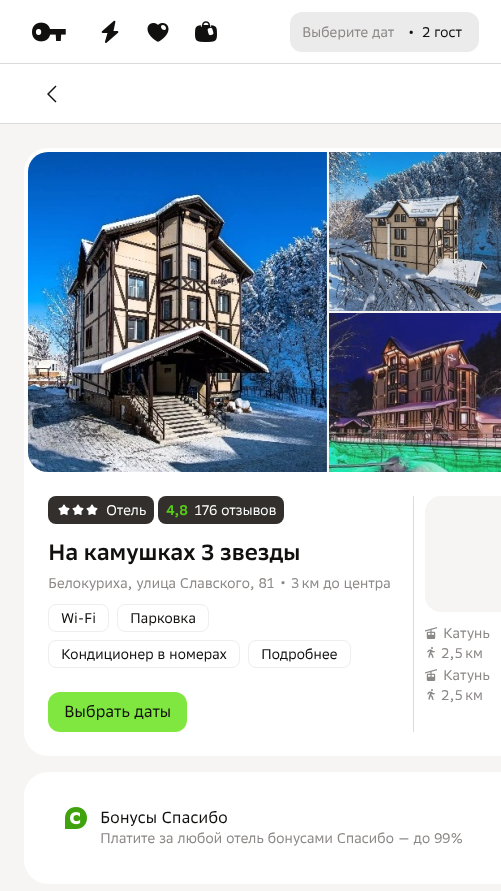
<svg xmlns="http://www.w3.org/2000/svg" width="501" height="891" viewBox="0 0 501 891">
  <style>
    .t1 { font: 14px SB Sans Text; letter-spacing: -0.3px; fill: #8b8886; }
    .t2 { font: 16px SB Sans Text; letter-spacing: -0.25px; fill: #11100f; }
    .t3 { font: 14px SB Sans Text; letter-spacing: -0.3px; fill: #11100f; }
    .t4 { font: 14px SB Sans Text; letter-spacing: -0.3px; fill: #fff; }
    .t5 { font: 600 14px SB Sans Text; letter-spacing: -0.3px; fill: #58cc16; }
    .t6 { font: 600 22px SB Sans Text; letter-spacing: -0.4px; fill: #11100f; }
    .t7 { font: 15px SB Sans Text; letter-spacing: -0.3px; fill: #8b8886; }
  </style>
  <rect width="100%" height="100%" fill="#f6f5f4"/>
  <rect x="0" y="0" width="501" height="124" fill="#fff"/>
  <rect x="0" y="63" width="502" height="1" rx="0.5" fill="#dadada"/>
  <image x="32" y="22" width="34" height="20" href="images/1.png"/>
  <image x="101" y="20" width="18" height="23" href="images/2.png"/>
  <image x="147" y="23" width="22" height="19" href="images/3.png"/>
  <image x="195" y="21" width="22" height="21" href="images/4.png"/>
  <rect x="290" y="12" width="189" height="40" rx="12" fill="#ebebeb"/>
  <text x="302" y="37" class="t1">Выберите дат</text>
  <text x="408" y="38" class="t2">•</text>
  <text x="422" y="37" class="t3">2 гост</text>
  <rect x="0" y="123" width="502" height="1" rx="0.5" fill="#dadada"/>
  <path d="M55.5 102.5L56.5 101.5L49 94L56.5 86.5L55.5 85.5L47 94Z" fill="#11100f" fill-rule="evenodd"/>
  <rect x="24" y="148" width="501" height="608" rx="24" fill="#fff"/>
  <rect x="28" y="152" width="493" height="320" rx="20" fill="#f6f5f4"/>
  <path d="M48 152H327V472H48C37 472 28 463 28 452V172C28 161 37 152 48 152Z" fill="#edebea"/>
  <image x="28" y="152" width="299" height="320" href="images/5.png"/>
  <path d="M28 168V172V452V456ZM48 152H44H326V472H44H48H327V152Z" fill="#84838229" fill-rule="evenodd"/>
  <image x="329" y="152" width="172" height="159" href="images/6.png"/>
  <image x="329" y="313" width="172" height="159" href="images/7.png"/>
  <rect x="48" y="496" width="106" height="28" rx="8" fill="#322f2c"/>
  <image x="58" y="504" width="12" height="11" href="images/8.png"/>
  <image x="72" y="504" width="12" height="11" href="images/8.png"/>
  <image x="86" y="504" width="12" height="11" href="images/8.png"/>
  <text x="106" y="515" class="t4">Отель</text>
  <rect x="158" y="496" width="126" height="28" rx="8" fill="#322f2c"/>
  <text x="166" y="515" class="t5">4,8</text>
  <text x="194" y="515" class="t4">176 отзывов</text>
  <text x="48" y="560" class="t6">На камушках 3 звезды</text>
  <text x="48" y="588" class="t1">Белокуриха, улица Славского, 81</text>
  <text x="280" y="588" class="t7">•</text>
  <text x="291" y="588" class="t1">3 км до центра</text>
  <rect x="48.5" y="604.5" width="60" height="27" rx="7.5" fill="none" stroke="#eee"/>
  <text x="61" y="623" class="t3">Wi-Fi</text>
  <rect x="117.5" y="604.5" width="91" height="27" rx="7.5" fill="none" stroke="#eee"/>
  <text x="130" y="623" class="t3">Парковка</text>
  <rect x="48.5" y="640.5" width="191" height="27" rx="7.5" fill="none" stroke="#eee"/>
  <text x="61" y="659" class="t3">Кондиционер в номерах</text>
  <rect x="248.5" y="640.5" width="102" height="27" rx="7.5" fill="none" stroke="#eee"/>
  <text x="261" y="659" class="t3">Подробнее</text>
  <rect x="48" y="692" width="139" height="40" rx="12" fill="#7fe740"/>
  <text x="64" y="717" class="t2">Выбрать даты</text>
  <rect x="413" y="496" width="1" height="236" rx="0.5" fill="#dadada"/>
  <rect x="425" y="496" width="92" height="116" rx="16" fill="#f6f5f4"/>
  <image x="425" y="627" width="12" height="12" href="images/9.png"/>
  <text x="443" y="638" class="t1">Катунь</text>
  <image x="427" y="647" width="8" height="11" href="images/10.png"/>
  <text x="441" y="658" class="t1">2,5 км</text>
  <image x="425" y="669" width="12" height="12" href="images/9.png"/>
  <text x="443" y="680" class="t1">Катунь</text>
  <image x="427" y="689" width="8" height="11" href="images/10.png"/>
  <text x="441" y="700" class="t1">2,5 км</text>
  <rect x="24" y="772" width="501" height="112" rx="24" fill="#fff"/>
  <image x="65" y="807" width="22" height="22" href="images/11.png"/>
  <text x="100" y="823" class="t2">Бонусы Спасибо</text>
  <text x="100" y="843" class="t1">Платите за любой отель бонусами Спасибо — до 99%</text>
</svg>
